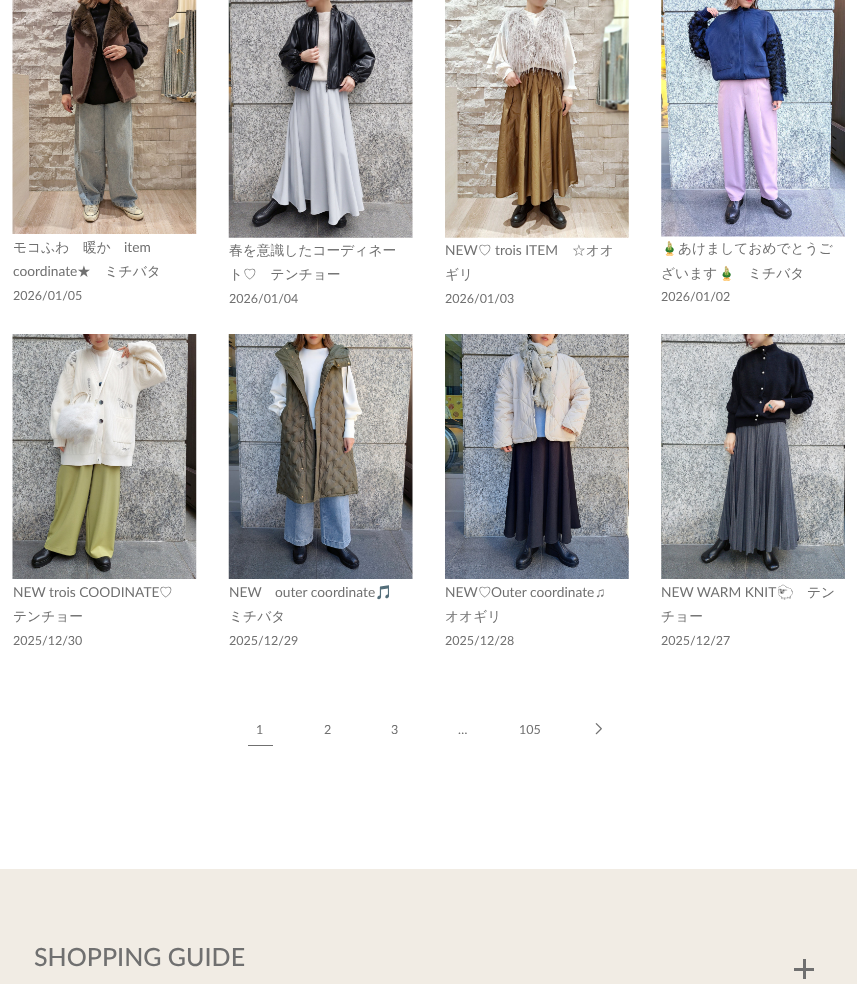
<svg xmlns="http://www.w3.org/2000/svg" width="857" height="984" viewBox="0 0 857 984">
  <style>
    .t1 { font: 500 13.75px WenQuanYi Zen Hei; fill: #707070; }
    .t2 { font: 13.75px Lato; fill: #707070; }
    .t3 { font: 12.5px Lato; fill: #707070; }
    .t4 { font: 13.75px Noto Color Emoji; fill: #707070; }
    .t5 { font: 13.75px Liberation Serif; fill: #707070; }
    .t6 { font: 500 25px Lato; fill: #707070; }
  </style>
  <rect width="100%" height="100%" fill="#fff"/>
  <image x="12" y="0" width="185" height="234" href="images/1.png"/>
  <text x="13" y="252" class="t1">モコふわ　暖か</text>
  <text x="124" y="252" class="t2">item</text>
  <text x="13" y="276" class="t2">coordinate</text>
  <text x="77" y="276" class="t1">★　ミチバタ</text>
  <text x="13" y="300" class="t3">2026/01/05</text>
  <image x="228" y="0" width="185" height="238" href="images/2.png"/>
  <text x="229" y="255" class="t1">春を意識したコーディネー</text>
  <text x="229" y="279" class="t1">ト♡　テンチョー</text>
  <text x="229" y="303" class="t3">2026/01/04</text>
  <image x="445" y="0" width="184" height="238" href="images/3.png"/>
  <text x="445" y="255" class="t2">NEW</text>
  <text x="478" y="255" class="t1">♡</text>
  <text x="495" y="255" class="t2">trois ITEM</text>
  <text x="572" y="255" class="t1">☆オオ</text>
  <text x="445" y="279" class="t1">ギリ</text>
  <text x="445" y="303" class="t3">2026/01/03</text>
  <image x="661" y="0" width="184" height="237" href="images/4.png"/>
  <text x="661" y="253" class="t4">🎍</text>
  <text x="678" y="253" class="t1">あけましておめでとうご</text>
  <text x="661" y="278" class="t1">ざいます</text>
  <text x="718" y="278" class="t4">🎍</text>
  <text x="748" y="278" class="t1">ミチバタ</text>
  <text x="661" y="301" class="t3">2026/01/02</text>
  <image x="12" y="334" width="185" height="245" href="images/5.png"/>
  <text x="13" y="597" class="t2">NEW trois COODINATE</text>
  <text x="159" y="597" class="t1">♡</text>
  <text x="13" y="621" class="t1">テンチョー</text>
  <text x="13" y="645" class="t3">2025/12/30</text>
  <image x="228" y="334" width="185" height="245" href="images/6.png"/>
  <text x="229" y="597" class="t2">NEW</text>
  <text x="275" y="597" class="t2">outer coordinate</text>
  <text x="375" y="597" class="t4">🎵</text>
  <text x="229" y="621" class="t1">ミチバタ</text>
  <text x="229" y="645" class="t3">2025/12/29</text>
  <image x="445" y="334" width="184" height="245" href="images/7.png"/>
  <text x="445" y="597" class="t2">NEW</text>
  <text x="478" y="597" class="t1">♡</text>
  <text x="491" y="597" class="t2">Outer coordinate</text>
  <text x="595" y="597" class="t5">♫</text>
  <text x="445" y="621" class="t1">オオギリ</text>
  <text x="445" y="645" class="t3">2025/12/28</text>
  <image x="661" y="334" width="184" height="245" href="images/8.png"/>
  <text x="661" y="597" class="t2">NEW WARM KNIT</text>
  <text x="777" y="597" class="t4">🐑</text>
  <text x="807" y="597" class="t1">テン</text>
  <text x="661" y="621" class="t1">チョー</text>
  <text x="661" y="645" class="t3">2025/12/27</text>
  <text x="256" y="734" class="t3">1</text>
  <rect x="248" y="745" width="25" height="1" fill="#707070"/>
  <text x="324" y="734" class="t3">2</text>
  <text x="391" y="734" class="t3">3</text>
  <text x="458" y="734" class="t3">…</text>
  <text x="519" y="734" class="t3">105</text>
  <image x="595" y="723" width="7" height="12" href="images/9.png"/>
  <rect x="0" y="869" width="857" height="115" fill="#f1ece4"/>
  <text x="34" y="966" class="t6">SHOPPING GUIDE</text>
  <rect x="794" y="968" width="20" height="3" fill="#707070"/>
  <rect x="803" y="959" width="3" height="20" fill="#707070"/>
</svg>
